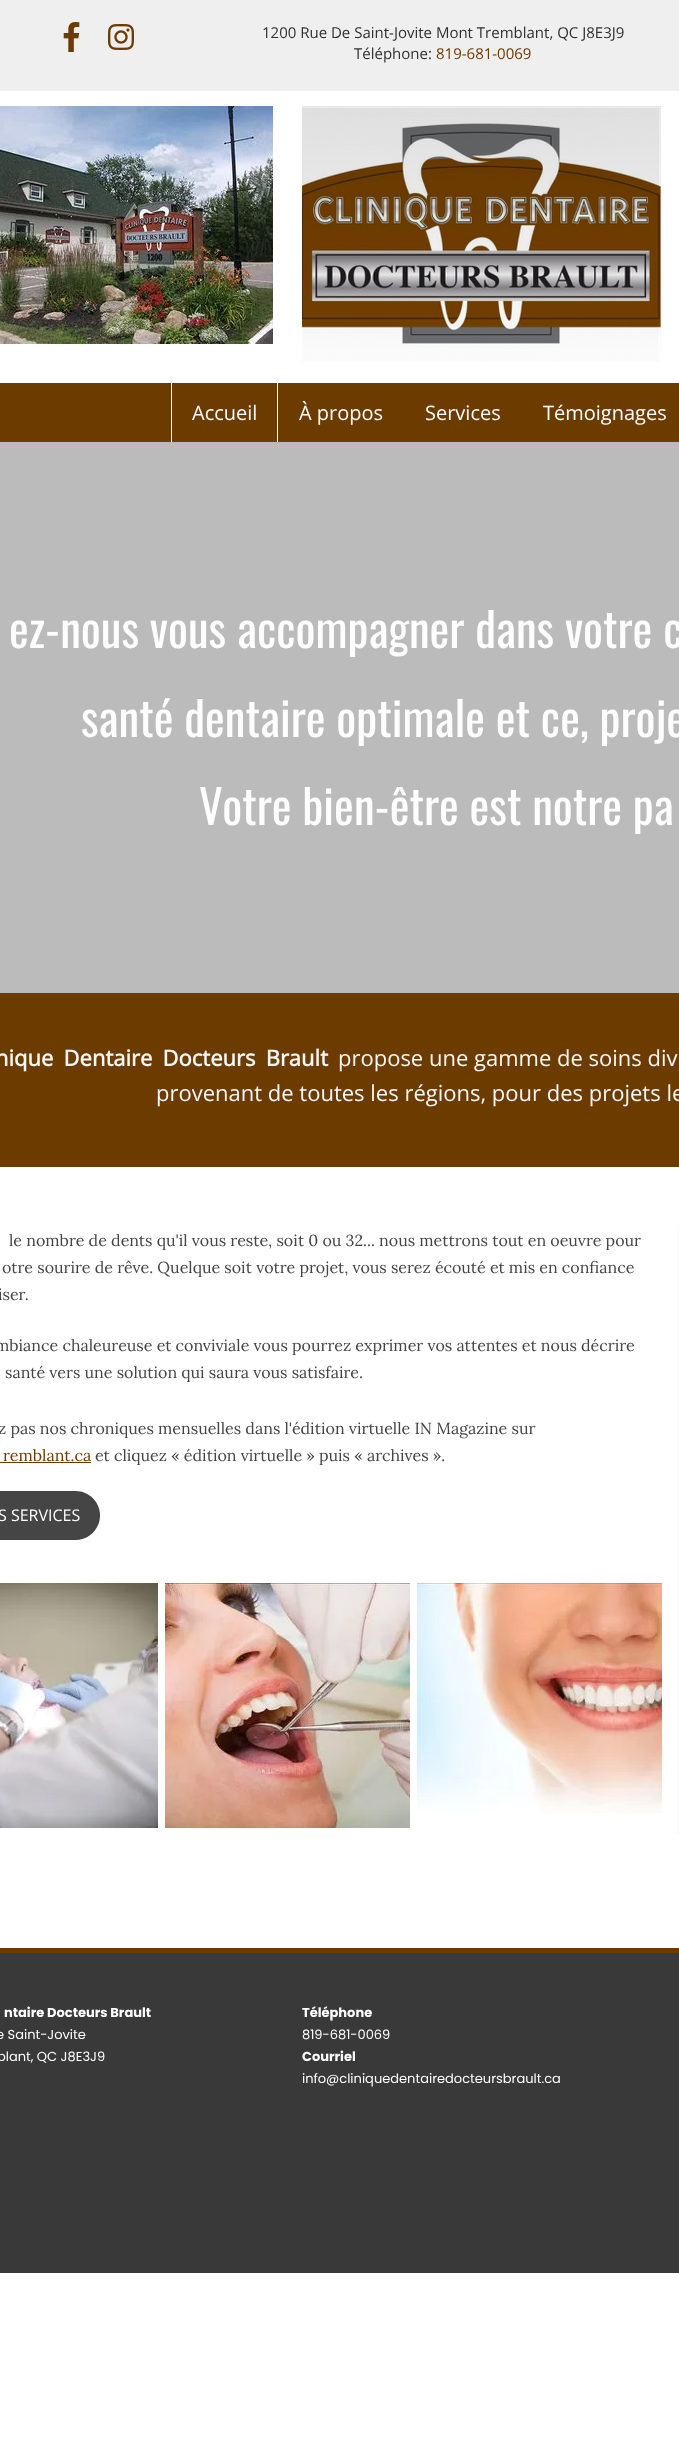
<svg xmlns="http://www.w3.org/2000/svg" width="679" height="2437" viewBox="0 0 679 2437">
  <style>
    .t1 { font: 15px Open Sans; fill: #2f2f2f; }
    .t2 { font: 15px Open Sans; fill: #6c3b00; }
    .t3 { font: 20px Open Sans; fill: #fdfdfd; }
    .t4 { font: 47px Oswald; fill: #fdfdfd; }
    .t5 { font: bold 22px Open Sans; fill: #f6f6f6; }
    .t6 { font: 22px Open Sans; fill: #f6f6f6; }
    .t7 { font: 16px Lora; fill: #454545; }
    .t8 { font: 16px Lora; fill: #6c3b00; }
    .t9 { font: 16px Open Sans; fill: #fdfdfd; }
    .t10 { font: bold 13px Poppins; fill: #fdfdfd; }
    .t11 { font: 13px Poppins; fill: #fdfdfd; }
  </style>
  <rect width="100%" height="100%" fill="#fff"/>
  <rect x="0" y="0" width="679" height="91" fill="#efefef"/>
  <image x="63" y="22" width="17" height="30" href="images/1.png"/>
  <image x="108" y="24" width="26" height="26" href="images/2.png"/>
  <text x="262" y="38" class="t1">1200 Rue De Saint-Jovite Mont Tremblant, QC J8E3J9</text>
  <text x="354" y="59" class="t1">Téléphone:</text>
  <text x="436" y="59" class="t2">819-681-0069</text>
  <image x="0" y="106" width="273" height="238" href="images/3.png"/>
  <image x="302" y="106" width="360" height="256" href="images/4.png"/>
  <rect x="0" y="383" width="679" height="59" fill="#6c3b00"/>
  <rect x="277" y="383" width="1" height="59" fill="#fff"/>
  <rect x="171" y="383" width="1" height="59" fill="#fff"/>
  <text x="192" y="420" class="t3">Accueil</text>
  <text x="299" y="420" class="t3">À propos</text>
  <text x="425" y="420" class="t3">Services</text>
  <text x="543" y="420" class="t3">Témoignages</text>
  <rect x="0" y="442" width="679" height="551" fill="#bbb"/>
  <text x="9" y="648" class="t4">ez-nous vous accompagner dans votre c</text>
  <text x="81" y="737" class="t4">santé dentaire optimale et ce, proje</text>
  <text x="199" y="825" class="t4">Votre bien-être est notre pa</text>
  <rect x="0" y="993" width="679" height="174" fill="#6c3b00"/>
  <text x="-5" y="1066" word-spacing="4.5" class="t5">nique Dentaire Docteurs Brault</text>
  <text x="338" y="1066" class="t6">propose une gamme de soins div</text>
  <text x="156" y="1101" class="t6">provenant de toutes les régions, pour des projets le</text>
  <text x="9" y="1246" class="t7">le nombre de dents qu'il vous reste, soit 0 ou 32... nous mettrons tout en oeuvre pour</text>
  <text x="2" y="1273" class="t7">otre sourire de rêve. Quelque soit votre projet, vous serez écouté et mis en confiance</text>
  <text x="-2" y="1300" class="t7">iser.</text>
  <text x="-5" y="1351" class="t7">mbiance chaleureuse et conviviale vous pourrez exprimer vos attentes et nous décrire</text>
  <text x="5" y="1378" class="t7">santé vers une solution qui saura vous satisfaire.</text>
  <text x="-2" y="1434" class="t7">z pas nos chroniques mensuelles dans l'édition virtuelle IN Magazine sur</text>
  <text x="3" y="1461" class="t8">remblant.ca</text>
  <rect x="0" y="1462" width="91" height="1" fill="#6c3b00"/>
  <text x="95" y="1461" class="t7">et cliquez « édition virtuelle » puis « archives ».</text>
  <path d="M0 1491H75.5C89 1491 100 1502 100 1515.5C100 1529 89 1540 75.5 1540H0Z" fill="#454545"/>
  <text x="-2" y="1521" class="t9">S SERVICES</text>
  <image x="0" y="1583" width="158" height="245" href="images/5.png"/>
  <image x="165" y="1583" width="245" height="245" href="images/6.png"/>
  <image x="417" y="1583" width="245" height="230" href="images/7.png"/>
  <rect x="678" y="1227" width="1" height="607" fill="#f6f6f6"/>
  <rect x="0" y="1948" width="679" height="5" fill="#6c3b00"/>
  <rect x="0" y="1953" width="679" height="320" fill="#393939"/>
  <text x="4" y="2017" class="t10">ntaire Docteurs Brault</text>
  <text x="-4" y="2039" class="t11">e Saint-Jovite</text>
  <text x="-3" y="2061" class="t11">blant, QC J8E3J9</text>
  <text x="302" y="2017" class="t10">Téléphone</text>
  <text x="302" y="2039" class="t11">819-681-0069</text>
  <text x="302" y="2061" class="t10">Courriel</text>
  <text x="302" y="2083" class="t11">info@cliniquedentairedocteursbrault.ca</text>
</svg>
